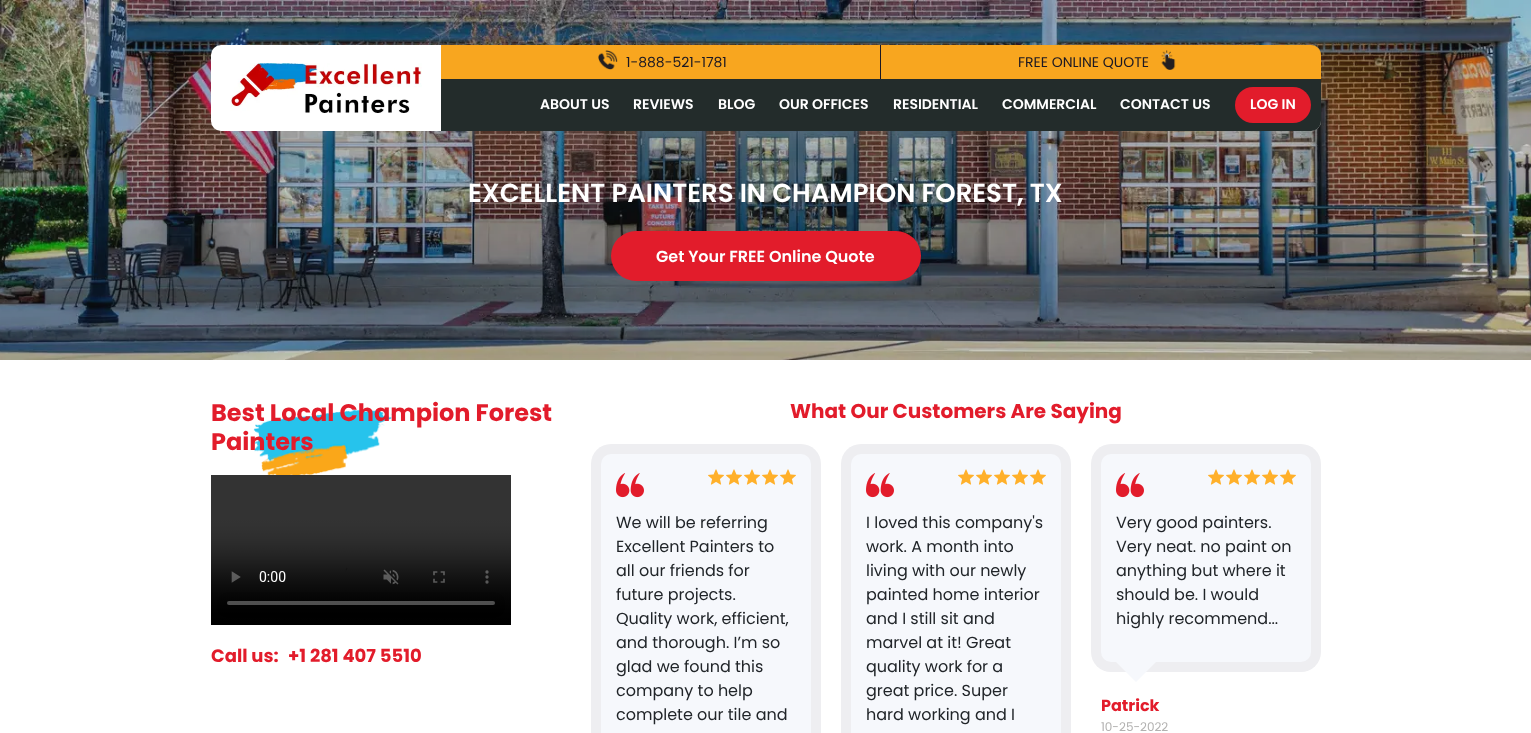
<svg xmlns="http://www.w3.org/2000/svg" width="1531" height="733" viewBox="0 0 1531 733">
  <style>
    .t1 { font: 14px Poppins; fill: #1b1823; }
    .t2 { font: 600 14px Poppins; fill: #fff; }
    .t3 { font: 600 26px Poppins; fill: #fff; }
    .t4 { font: 600 16px Poppins; fill: #fff; }
    .t5 { font: bold 24px Poppins; fill: #e21c2b; }
    .t6 { font: bold 18px Poppins; fill: #e21c2b; }
    .t7 { font: bold 20px Poppins; fill: #e21c2b; }
    .t8 { font: 16px Poppins; fill: #212529; }
    .t9 { font: bold 16px Poppins; fill: #e21c2b; }
    .t10 { font: 12px Poppins; fill: #b3b2b1; }
  </style>
  <rect width="100%" height="100%" fill="#fff"/>
  <image x="0" y="0" width="1531" height="360" href="images/4.png"/>
  <rect x="211" y="48" width="1110" height="86" rx="10" fill="#9ea2a933" filter="blur(12px)"/>
  <rect x="211" y="45" width="1110" height="86" rx="10" fill="#fff"/>
  <path d="M221 48H441V128H221C215.5 128 211 123.5 211 118V58C211 52.5 215.5 48 221 48Z" fill="#fff"/>
  <image x="230" y="63" width="192" height="50" href="images/1.png"/>
  <path d="M441 45H1311C1316.5 45 1321 49.5 1321 55V121C1321 126.5 1316.5 131 1311 131H441Z" fill="#232c2b"/>
  <path d="M441 45H1311C1316.5 45 1321 49.5 1321 55V79H441Z" fill="#f8a61f"/>
  <rect x="880" y="45" width="1" height="34" fill="#1b1823"/>
  <image x="598" y="50" width="20" height="20" href="images/2.png"/>
  <text x="626" y="67" class="t1">1-888-521-1781</text>
  <text x="1018" y="67" class="t1">FREE ONLINE QUOTE</text>
  <image x="1161" y="50" width="15" height="20" href="images/3.png"/>
  <text x="540" y="109" class="t2">ABOUT US</text>
  <text x="633" y="109" class="t2">REVIEWS</text>
  <text x="718" y="109" class="t2">BLOG</text>
  <text x="779" y="109" class="t2">OUR OFFICES</text>
  <text x="893" y="109" class="t2">RESIDENTIAL</text>
  <text x="1002" y="109" class="t2">COMMERCIAL</text>
  <text x="1120" y="109" class="t2">CONTACT US</text>
  <rect x="1235" y="87" width="76" height="36" rx="18" fill="#e21c2b"/>
  <text x="1250" y="109" class="t2">LOG IN</text>
  <text x="468" y="202" class="t3">EXCELLENT PAINTERS IN CHAMPION FOREST, TX</text>
  <rect x="611" y="231" width="310" height="50" rx="25" fill="#e21c2b"/>
  <text x="656" y="262" class="t4">Get Your FREE Online Quote</text>
  <image x="253" y="409" width="140" height="66" href="images/5.png"/>
  <text x="211" y="421" class="t5">Best Local Champion Forest</text>
  <text x="211" y="450" class="t5">Painters</text>
  <image x="211" y="475" width="300" height="150" href="images/6.png"/>
  <text x="211" y="662" class="t6">Call us:</text>
  <text x="288" y="662" class="t6">+1 281 407 5510</text>
  <text x="790" y="418" class="t7">What Our Customers Are Saying</text>
  <rect x="591" y="444" width="230" height="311" rx="20" fill="#eeeef1" filter="blur(0.5px)"/>
  <rect x="601" y="454" width="210" height="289" rx="10" fill="#f6f8fc"/>
  <image x="616" y="473" width="28" height="25" href="images/7.png"/>
  <image x="708" y="469" width="16" height="16" href="images/8.png"/>
  <image x="726" y="469" width="16" height="16" href="images/8.png"/>
  <image x="744" y="469" width="16" height="16" href="images/8.png"/>
  <image x="762" y="469" width="16" height="16" href="images/8.png"/>
  <image x="780" y="469" width="16" height="16" href="images/8.png"/>
  <text x="616" y="528" class="t8">We will be referring</text>
  <text x="616" y="552" class="t8">Excellent Painters to</text>
  <text x="616" y="576" class="t8">all our friends for</text>
  <text x="616" y="600" class="t8">future projects.</text>
  <text x="616" y="624" class="t8">Quality work, efficient,</text>
  <text x="616" y="648" class="t8">and thorough. I’m so</text>
  <text x="616" y="672" class="t8">glad we found this</text>
  <text x="616" y="696" class="t8">company to help</text>
  <text x="616" y="720" class="t8">complete our tile and</text>
  <rect x="841" y="444" width="230" height="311" rx="20" fill="#eeeef1" filter="blur(0.5px)"/>
  <rect x="851" y="454" width="210" height="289" rx="10" fill="#f6f8fc"/>
  <image x="866" y="473" width="28" height="25" href="images/7.png"/>
  <image x="958" y="469" width="16" height="16" href="images/8.png"/>
  <image x="976" y="469" width="16" height="16" href="images/8.png"/>
  <image x="994" y="469" width="16" height="16" href="images/8.png"/>
  <image x="1012" y="469" width="16" height="16" href="images/8.png"/>
  <image x="1030" y="469" width="16" height="16" href="images/8.png"/>
  <text x="866" y="528" class="t8">I loved this company's</text>
  <text x="866" y="552" class="t8">work. A month into</text>
  <text x="866" y="576" class="t8">living with our newly</text>
  <text x="866" y="600" class="t8">painted home interior</text>
  <text x="866" y="624" class="t8">and I still sit and</text>
  <text x="866" y="648" class="t8">marvel at it! Great</text>
  <text x="866" y="672" class="t8">quality work for a</text>
  <text x="866" y="696" class="t8">great price. Super</text>
  <text x="866" y="720" class="t8">hard working and I</text>
  <rect x="1091" y="444" width="230" height="228" rx="20" fill="#eeeef1" filter="blur(0.5px)"/>
  <rect x="1101" y="454" width="210" height="208" rx="10" fill="#f6f8fc"/>
  <image x="1116" y="473" width="28" height="25" href="images/7.png"/>
  <image x="1208" y="469" width="16" height="16" href="images/8.png"/>
  <image x="1226" y="469" width="16" height="16" href="images/8.png"/>
  <image x="1244" y="469" width="16" height="16" href="images/8.png"/>
  <image x="1262" y="469" width="16" height="16" href="images/8.png"/>
  <image x="1280" y="469" width="16" height="16" href="images/8.png"/>
  <text x="1116" y="528" class="t8">Very good painters.</text>
  <text x="1116" y="552" class="t8">Very neat. no paint on</text>
  <text x="1116" y="576" class="t8">anything but where it</text>
  <text x="1116" y="600" class="t8">should be. I would</text>
  <text x="1116" y="624" class="t8">highly recommend...</text>
  <path d="M1116 662H1156L1136 682Z" fill="#f6f8fc"/>
  <text x="1101" y="711" class="t9">Patrick</text>
  <text x="1101" y="731" class="t10">10-25-2022</text>
</svg>
